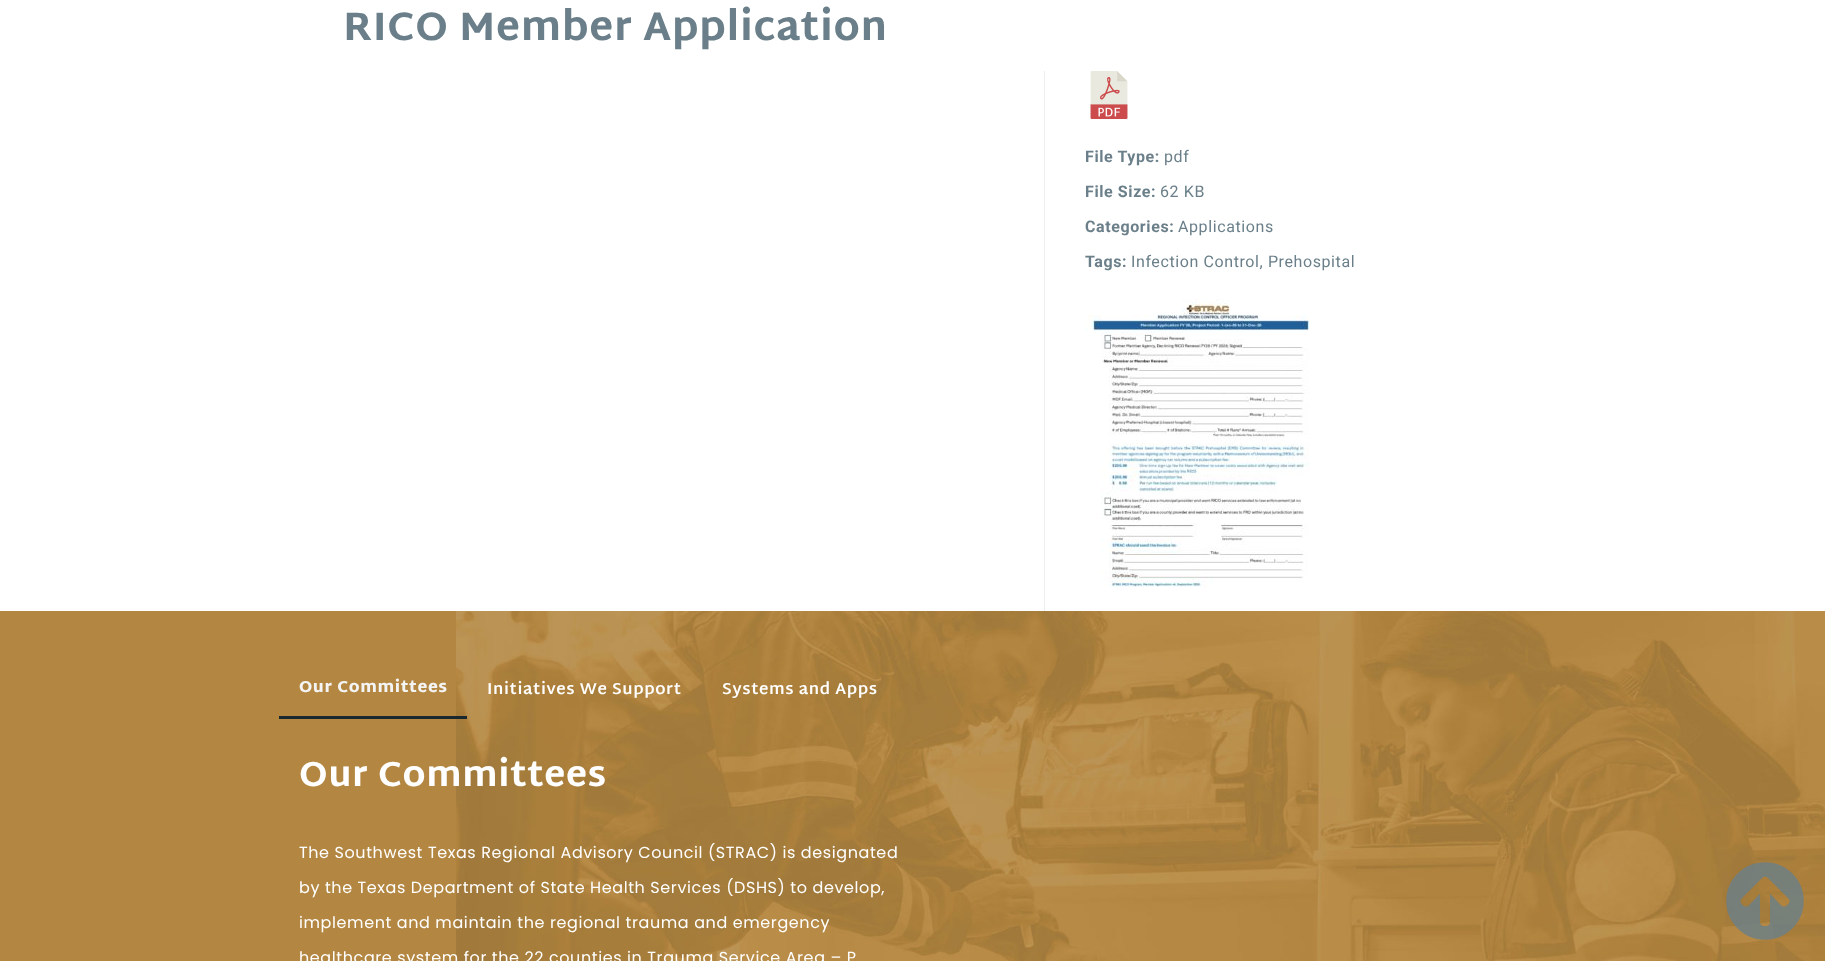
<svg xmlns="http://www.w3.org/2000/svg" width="1825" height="961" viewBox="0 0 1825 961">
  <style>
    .t1 { font: 800 40px Martel Sans; letter-spacing: 0.6px; fill: #6a7f89; }
    .t2 { font: bold 16px Roboto; letter-spacing: 0.6px; fill: #6a7f89; }
    .t3 { font: 16px Roboto; letter-spacing: 0.6px; fill: #6a7f89; }
    .t4 { font: 900 16px Martel Sans; letter-spacing: 0.6px; fill: #f4f4f4; }
    .t5 { font: bold 16px Martel Sans; letter-spacing: 0.6px; fill: #fff; }
    .t6 { font: 800 35px Martel Sans; letter-spacing: 0.6px; fill: #fff; }
    .t7 { font: 16px Poppins; letter-spacing: 0.6px; fill: #fff; }
  </style>
  <rect width="100%" height="100%" fill="#fff"/>
  <text x="343" y="40" class="t1">RICO Member Application</text>
  <rect x="1044" y="71" width="1" height="540" fill="#eee"/>
  <image x="1090" y="71" width="38" height="48" href="images/1.png"/>
  <text x="1085" y="162" class="t2">File Type:</text>
  <text x="1164" y="162" class="t3">pdf</text>
  <text x="1085" y="197" class="t2">File Size:</text>
  <text x="1160" y="197" class="t3">62 KB</text>
  <text x="1085" y="232" class="t2">Categories:</text>
  <text x="1178" y="232" class="t3">Applications</text>
  <text x="1085" y="267" class="t2">Tags:</text>
  <text x="1131" y="267" class="t3">Infection Control, Prehospital</text>
  <image x="1085" y="299" width="225" height="288" href="images/2.png"/>
  <rect x="0" y="611" width="456" height="350" fill="#b38742"/>
  <image x="456" y="611" width="1369" height="350" href="images/3.png"/>
  <rect x="279" y="716" width="188" height="3" fill="#19282f"/>
  <text x="299" y="692" class="t4">Our Committees</text>
  <text x="487" y="694" class="t5">Initiatives We Support</text>
  <text x="722" y="694" class="t5">Systems and Apps</text>
  <text x="299" y="786" class="t6">Our Committees</text>
  <text x="299" y="858" class="t7">The Southwest Texas Regional Advisory Council (STRAC) is designated</text>
  <text x="299" y="893" class="t7">by the Texas Department of State Health Services (DSHS) to develop,</text>
  <text x="299" y="928" class="t7">implement and maintain the regional trauma and emergency</text>
  <text x="299" y="963" class="t7">healthcare system for the 22 counties in Trauma Service Area – P</text>
  <image x="1726" y="862" width="78" height="78" href="images/4.png"/>
</svg>
